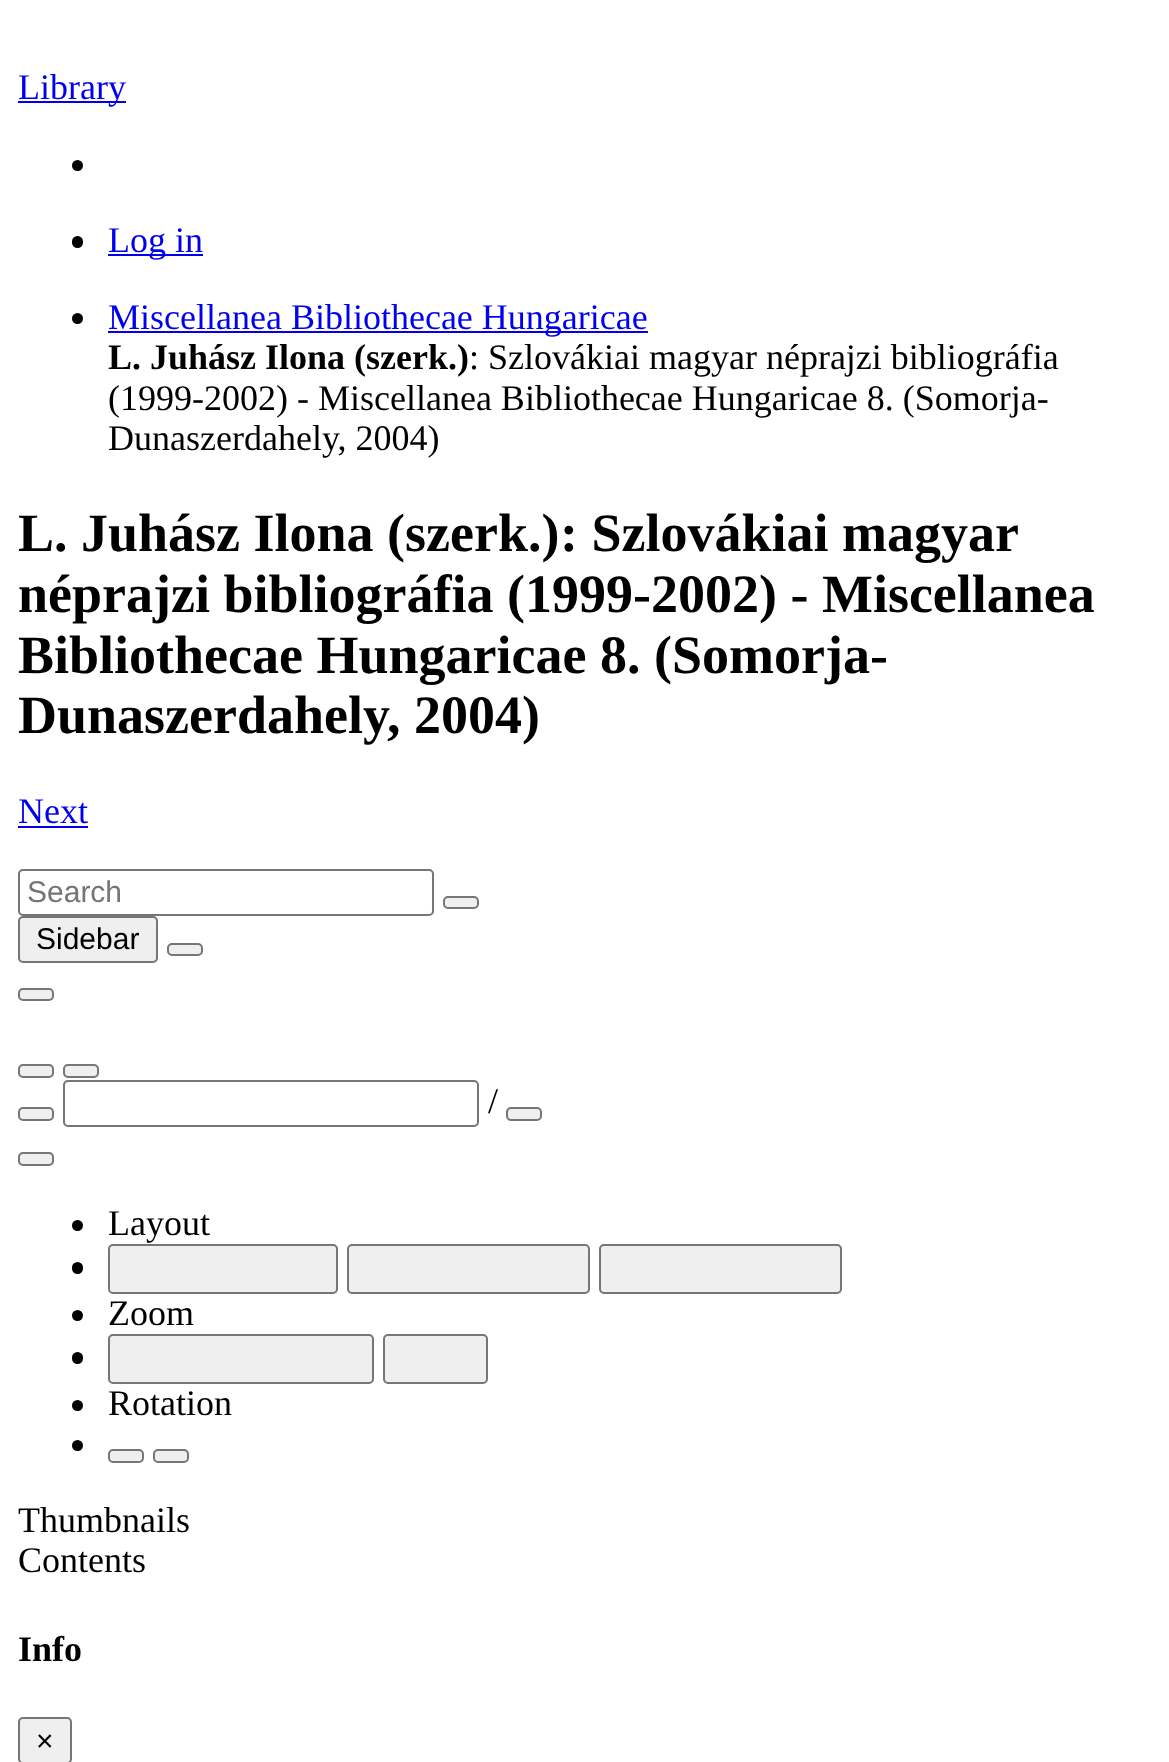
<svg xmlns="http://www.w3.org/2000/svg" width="1169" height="1762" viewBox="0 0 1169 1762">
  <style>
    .t1 { font: 36px Liberation Serif; fill: #00e; }
    .t2 { font: bold 36px Liberation Serif; fill: #000; }
    .t3 { font: 36px Liberation Serif; fill: #000; }
    .t4 { font: bold 54px Liberation Serif; fill: #000; }
    .t5 { font: 30px Liberation Sans; fill: #757575; }
    .t6 { font: 30px Liberation Sans; fill: #000; }
  </style>
  <rect width="100%" height="100%" fill="#fff"/>
  <rect x="18" y="101" width="108" height="2" fill="#00e"/>
  <text x="18" y="99" class="t1">Library</text>
  <circle cx="77.5" cy="165.5" r="5.5" fill="#000"/>
  <rect x="72" y="236" width="11" height="12" rx="5.5" fill="#000"/>
  <rect x="108" y="254" width="95" height="2" fill="#00e"/>
  <text x="108" y="252" class="t1">Log in</text>
  <circle cx="77.5" cy="318.5" r="5.5" fill="#000"/>
  <rect x="108" y="331" width="540" height="2" fill="#00e"/>
  <text x="108" y="329" class="t1">Miscellanea Bibliothecae Hungaricae</text>
  <text x="108" y="369" class="t2">L. Juhász Ilona (szerk.)</text>
  <text x="469" y="369" class="t3">: Szlovákiai magyar néprajzi bibliográfia</text>
  <text x="108" y="410" class="t3">(1999-2002) - Miscellanea Bibliothecae Hungaricae 8. (Somorja-</text>
  <text x="108" y="450" class="t3">Dunaszerdahely, 2004)</text>
  <text x="18" y="551" class="t4">L. Juhász Ilona (szerk.)</text>
  <text x="560" y="551" class="t4">: Szlovákiai magyar</text>
  <text x="18" y="612" class="t4">néprajzi bibliográfia (1999-2002) - Miscellanea</text>
  <text x="18" y="673" class="t4">Bibliothecae Hungaricae 8. (Somorja-</text>
  <text x="18" y="733" class="t4">Dunaszerdahely, 2004)</text>
  <text x="18" y="823" class="t1">Next</text>
  <rect x="18" y="826" width="70" height="2" fill="#00e"/>
  <rect x="19" y="870" width="414" height="45" rx="4" fill="none" stroke="#767676" stroke-width="2"/>
  <text x="27" y="902" class="t5">Search</text>
  <rect x="444" y="897" width="34" height="11" rx="4" fill="#efefef" stroke="#767676" stroke-width="2"/>
  <rect x="19" y="917" width="138" height="45" rx="4" fill="#efefef" stroke="#767676" stroke-width="2"/>
  <text x="36" y="949" class="t6">Sidebar</text>
  <rect x="168" y="944" width="34" height="11" rx="4" fill="#efefef" stroke="#767676" stroke-width="2"/>
  <rect x="19" y="989" width="34" height="11" rx="4" fill="#efefef" stroke="#767676" stroke-width="2"/>
  <rect x="19" y="1065" width="34" height="12" rx="4" fill="#efefef" stroke="#767676" stroke-width="2"/>
  <rect x="64" y="1065" width="34" height="12" rx="4" fill="#efefef" stroke="#767676" stroke-width="2"/>
  <rect x="19" y="1108" width="34" height="12" rx="4" fill="#efefef" stroke="#767676" stroke-width="2"/>
  <rect x="64" y="1081" width="414" height="45" rx="4" fill="none" stroke="#767676" stroke-width="2"/>
  <text x="488" y="1113" class="t3">/</text>
  <rect x="507" y="1108" width="34" height="12" rx="4" fill="#efefef" stroke="#767676" stroke-width="2"/>
  <rect x="19" y="1153" width="34" height="12" rx="4" fill="#efefef" stroke="#767676" stroke-width="2"/>
  <circle cx="77.5" cy="1225.5" r="5.5" fill="#000"/>
  <text x="108" y="1235" class="t3">Layout</text>
  <rect x="72" y="1262" width="11" height="12" rx="5.5" fill="#000"/>
  <rect x="109" y="1245" width="228" height="48" rx="4" fill="#efefef" stroke="#767676" stroke-width="2"/>
  <rect x="348" y="1245" width="241" height="48" rx="4" fill="#efefef" stroke="#767676" stroke-width="2"/>
  <rect x="600" y="1245" width="241" height="48" rx="4" fill="#efefef" stroke="#767676" stroke-width="2"/>
  <circle cx="77.5" cy="1315.5" r="5.5" fill="#000"/>
  <text x="108" y="1325" class="t3">Zoom</text>
  <rect x="72" y="1352" width="11" height="12" rx="5.5" fill="#000"/>
  <rect x="109" y="1335" width="264" height="48" rx="4" fill="#efefef" stroke="#767676" stroke-width="2"/>
  <rect x="384" y="1335" width="103" height="48" rx="4" fill="#efefef" stroke="#767676" stroke-width="2"/>
  <circle cx="77.5" cy="1405.5" r="5.5" fill="#000"/>
  <text x="108" y="1415" class="t3">Rotation</text>
  <circle cx="77.5" cy="1445.5" r="5.5" fill="#000"/>
  <rect x="109" y="1450" width="34" height="12" rx="4" fill="#efefef" stroke="#767676" stroke-width="2"/>
  <rect x="154" y="1450" width="34" height="12" rx="4" fill="#efefef" stroke="#767676" stroke-width="2"/>
  <text x="18" y="1532" class="t3">Thumbnails</text>
  <text x="18" y="1572" class="t3">Contents</text>
  <text x="18" y="1661" class="t2">Info</text>
  <rect x="19" y="1718" width="52" height="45" rx="4" fill="#efefef" stroke="#767676" stroke-width="2"/>
  <text x="36" y="1751" class="t6">×</text>
</svg>
